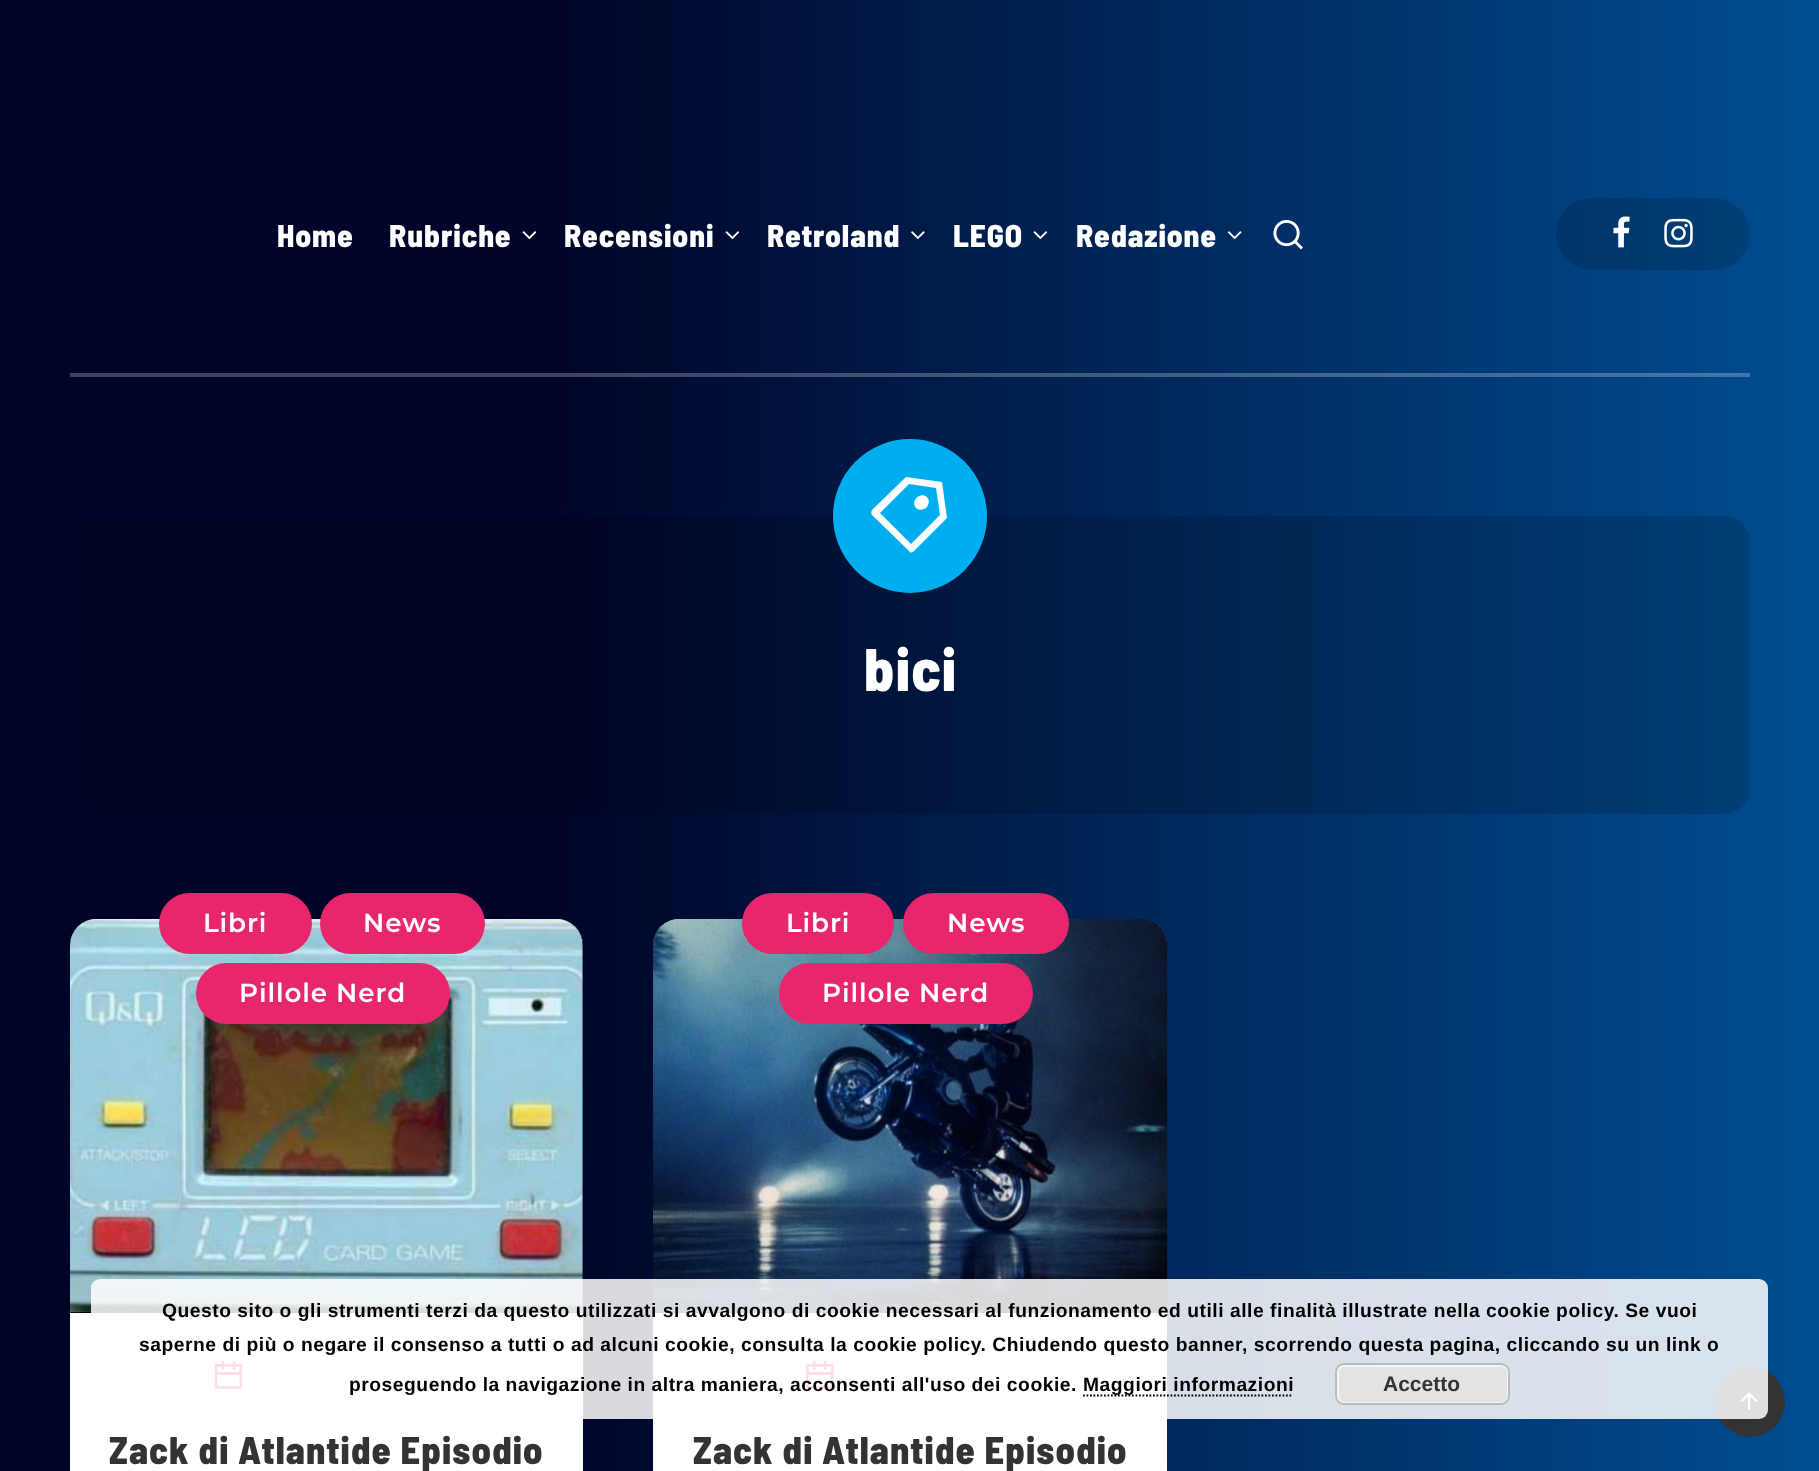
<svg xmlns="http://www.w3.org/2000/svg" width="1819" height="1471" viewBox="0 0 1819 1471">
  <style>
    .t1 { font: 800 31.5px Barlow Semi Condensed; letter-spacing: 0.9px; fill: #fff; }
    .t2 { font: 800 60px Barlow Semi Condensed; letter-spacing: 1.05px; fill: #fff; }
    .t3 { font: 600 26.25px Montserrat; letter-spacing: 0.9px; fill: #fff; }
    .t4 { font: 800 38.5px Barlow Semi Condensed; letter-spacing: 1.05px; fill: #333; }
    .t5 { font: bold 19.25px Liberation Sans; letter-spacing: 0.53px; fill: #000; }
    .t6 { font: bold 21px Liberation Sans; fill: #333; }
  </style>
  <defs>
    <linearGradient id="g1" gradientUnits="userSpaceOnUse" x1="0" y1="736" x2="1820" y2="736"><stop offset="0.3" stop-color="#000428"/><stop offset="1" stop-color="#004e92"/></linearGradient>
    <linearGradient id="g2" gradientUnits="userSpaceOnUse" x1="0" y1="736" x2="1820" y2="736"><stop offset="0.3" stop-color="#40435e"/><stop offset="1" stop-color="#407aad"/></linearGradient>
  </defs>
  <rect width="100%" height="100%" fill="#fff"/>
  <rect x="0" y="0" width="1819" height="1471" fill="url(#g1)"/>
  <rect x="70" y="373" width="1680" height="4" fill="url(#g2)"/>
  <text x="277" y="247" class="t1">Home</text>
  <text x="389" y="247" class="t1">Rubriche</text>
  <image x="522" y="231" width="15" height="9" href="images/1.png"/>
  <text x="564" y="247" class="t1">Recensioni</text>
  <image x="725" y="231" width="15" height="9" href="images/2.png"/>
  <text x="767" y="247" class="t1">Retroland</text>
  <image x="911" y="231" width="14" height="9" href="images/3.png"/>
  <text x="953" y="247" class="t1">LEGO</text>
  <image x="1033" y="231" width="15" height="9" href="images/4.png"/>
  <text x="1076" y="247" class="t1">Redazione</text>
  <image x="1227" y="231" width="15" height="9" href="images/5.png"/>
  <image x="1273" y="219" width="30" height="31" href="images/6.png"/>
  <rect x="1556" y="198" width="194" height="72" rx="36" fill="#00000026"/>
  <image x="1613" y="216" width="17" height="32" href="images/7.png"/>
  <image x="1664" y="218" width="29" height="30" href="images/8.png"/>
  <rect x="70" y="516" width="1680" height="298" rx="26" fill="#00000026"/>
  <circle cx="910" cy="516" r="73.5" fill="#00aeef" stroke="#00aeef" stroke-width="7"/>
  <path d="M906 477L942 482L947 518L914 551C912 553 910 553 909 551L872 515C871 514 871 512 872 510ZM909 484L880 513L911 544L940 515L936 488ZM916 508C910 501 920 491 927 497C933 504 923 514 916 508Z" fill="#fff"/>
  <text x="864" y="691" class="t2">bici</text>
  <rect x="70" y="919" width="513" height="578" rx="26" fill="#fff"/>
  <path d="M96 919H557C571.5 919 583 930.5 583 945V1313H70V945C70 930.5 81.5 919 96 919Z" fill="#000"/>
  <image x="70" y="919" width="513" height="394" href="images/9.png"/>
  <rect x="159" y="893" width="153" height="61" rx="30.5" fill="#e7266d"/>
  <text x="203" y="932" class="t3">Libri</text>
  <rect x="320" y="893" width="165" height="61" rx="30.5" fill="#e7266d"/>
  <text x="363" y="932" class="t3">News</text>
  <rect x="196" y="963" width="254" height="61" rx="30.5" fill="#e7266d"/>
  <text x="239" y="1002" class="t3">Pillole Nerd</text>
  <image x="214" y="1361" width="29" height="28" href="images/10.png"/>
  <text x="109" y="1464" class="t4">Zack di Atlantide Episodio</text>
  <rect x="653" y="919" width="514" height="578" rx="26" fill="#fff"/>
  <path d="M679 919H1141C1155.5 919 1167 930.5 1167 945V1313H653V945C653 930.5 664.5 919 679 919Z" fill="#000"/>
  <image x="653" y="919" width="515" height="394" href="images/11.png"/>
  <rect x="742" y="893" width="152" height="61" rx="30.5" fill="#e7266d"/>
  <text x="786" y="932" class="t3">Libri</text>
  <rect x="903" y="893" width="166" height="61" rx="30.5" fill="#e7266d"/>
  <text x="947" y="932" class="t3">News</text>
  <rect x="779" y="963" width="254" height="61" rx="30.5" fill="#e7266d"/>
  <text x="822" y="1002" class="t3">Pillole Nerd</text>
  <image x="806" y="1361" width="28" height="28" href="images/12.png"/>
  <text x="693" y="1464" class="t4">Zack di Atlantide Episodio</text>
  <circle cx="1750" cy="1402" r="35" fill="#333"/>
  <image x="1740" y="1392" width="18" height="18" href="images/13.png"/>
  <rect x="91" y="1279" width="1677" height="140" rx="9" fill="#ffffffd9"/>
  <text x="162" y="1317" class="t5">Questo sito o gli strumenti terzi da questo utilizzati si avvalgono di cookie necessari al funzionamento ed utili alle finalità illustrate nella cookie policy. Se vuoi</text>
  <text x="139" y="1351" class="t5">saperne di più o negare il consenso a tutti o ad alcuni cookie, consulta la cookie policy. Chiudendo questo banner, scorrendo questa pagina, cliccando su un link o</text>
  <text x="349" y="1391" class="t5">proseguendo la navigazione in altra maniera, acconsenti all'uso dei cookie.</text>
  <path d="M1083 1395.5H1293" fill="none" stroke="#000" stroke-width="1.8" stroke-dasharray="1.75 1.75"/>
  <text x="1083" y="1391" class="t5">Maggiori informazioni</text>
  <rect x="1335" y="1363" width="175" height="42" rx="9" fill="#e3e3e3"/>
  <rect x="1338" y="1366" width="170" height="37" rx="6" fill="none" stroke="#f6f6f6" stroke-width="2"/>
  <rect x="1336" y="1364" width="173" height="40" rx="8" fill="none" stroke="#bbb" stroke-width="2"/>
  <text x="1383" y="1391" class="t6">Accetto</text>
</svg>
